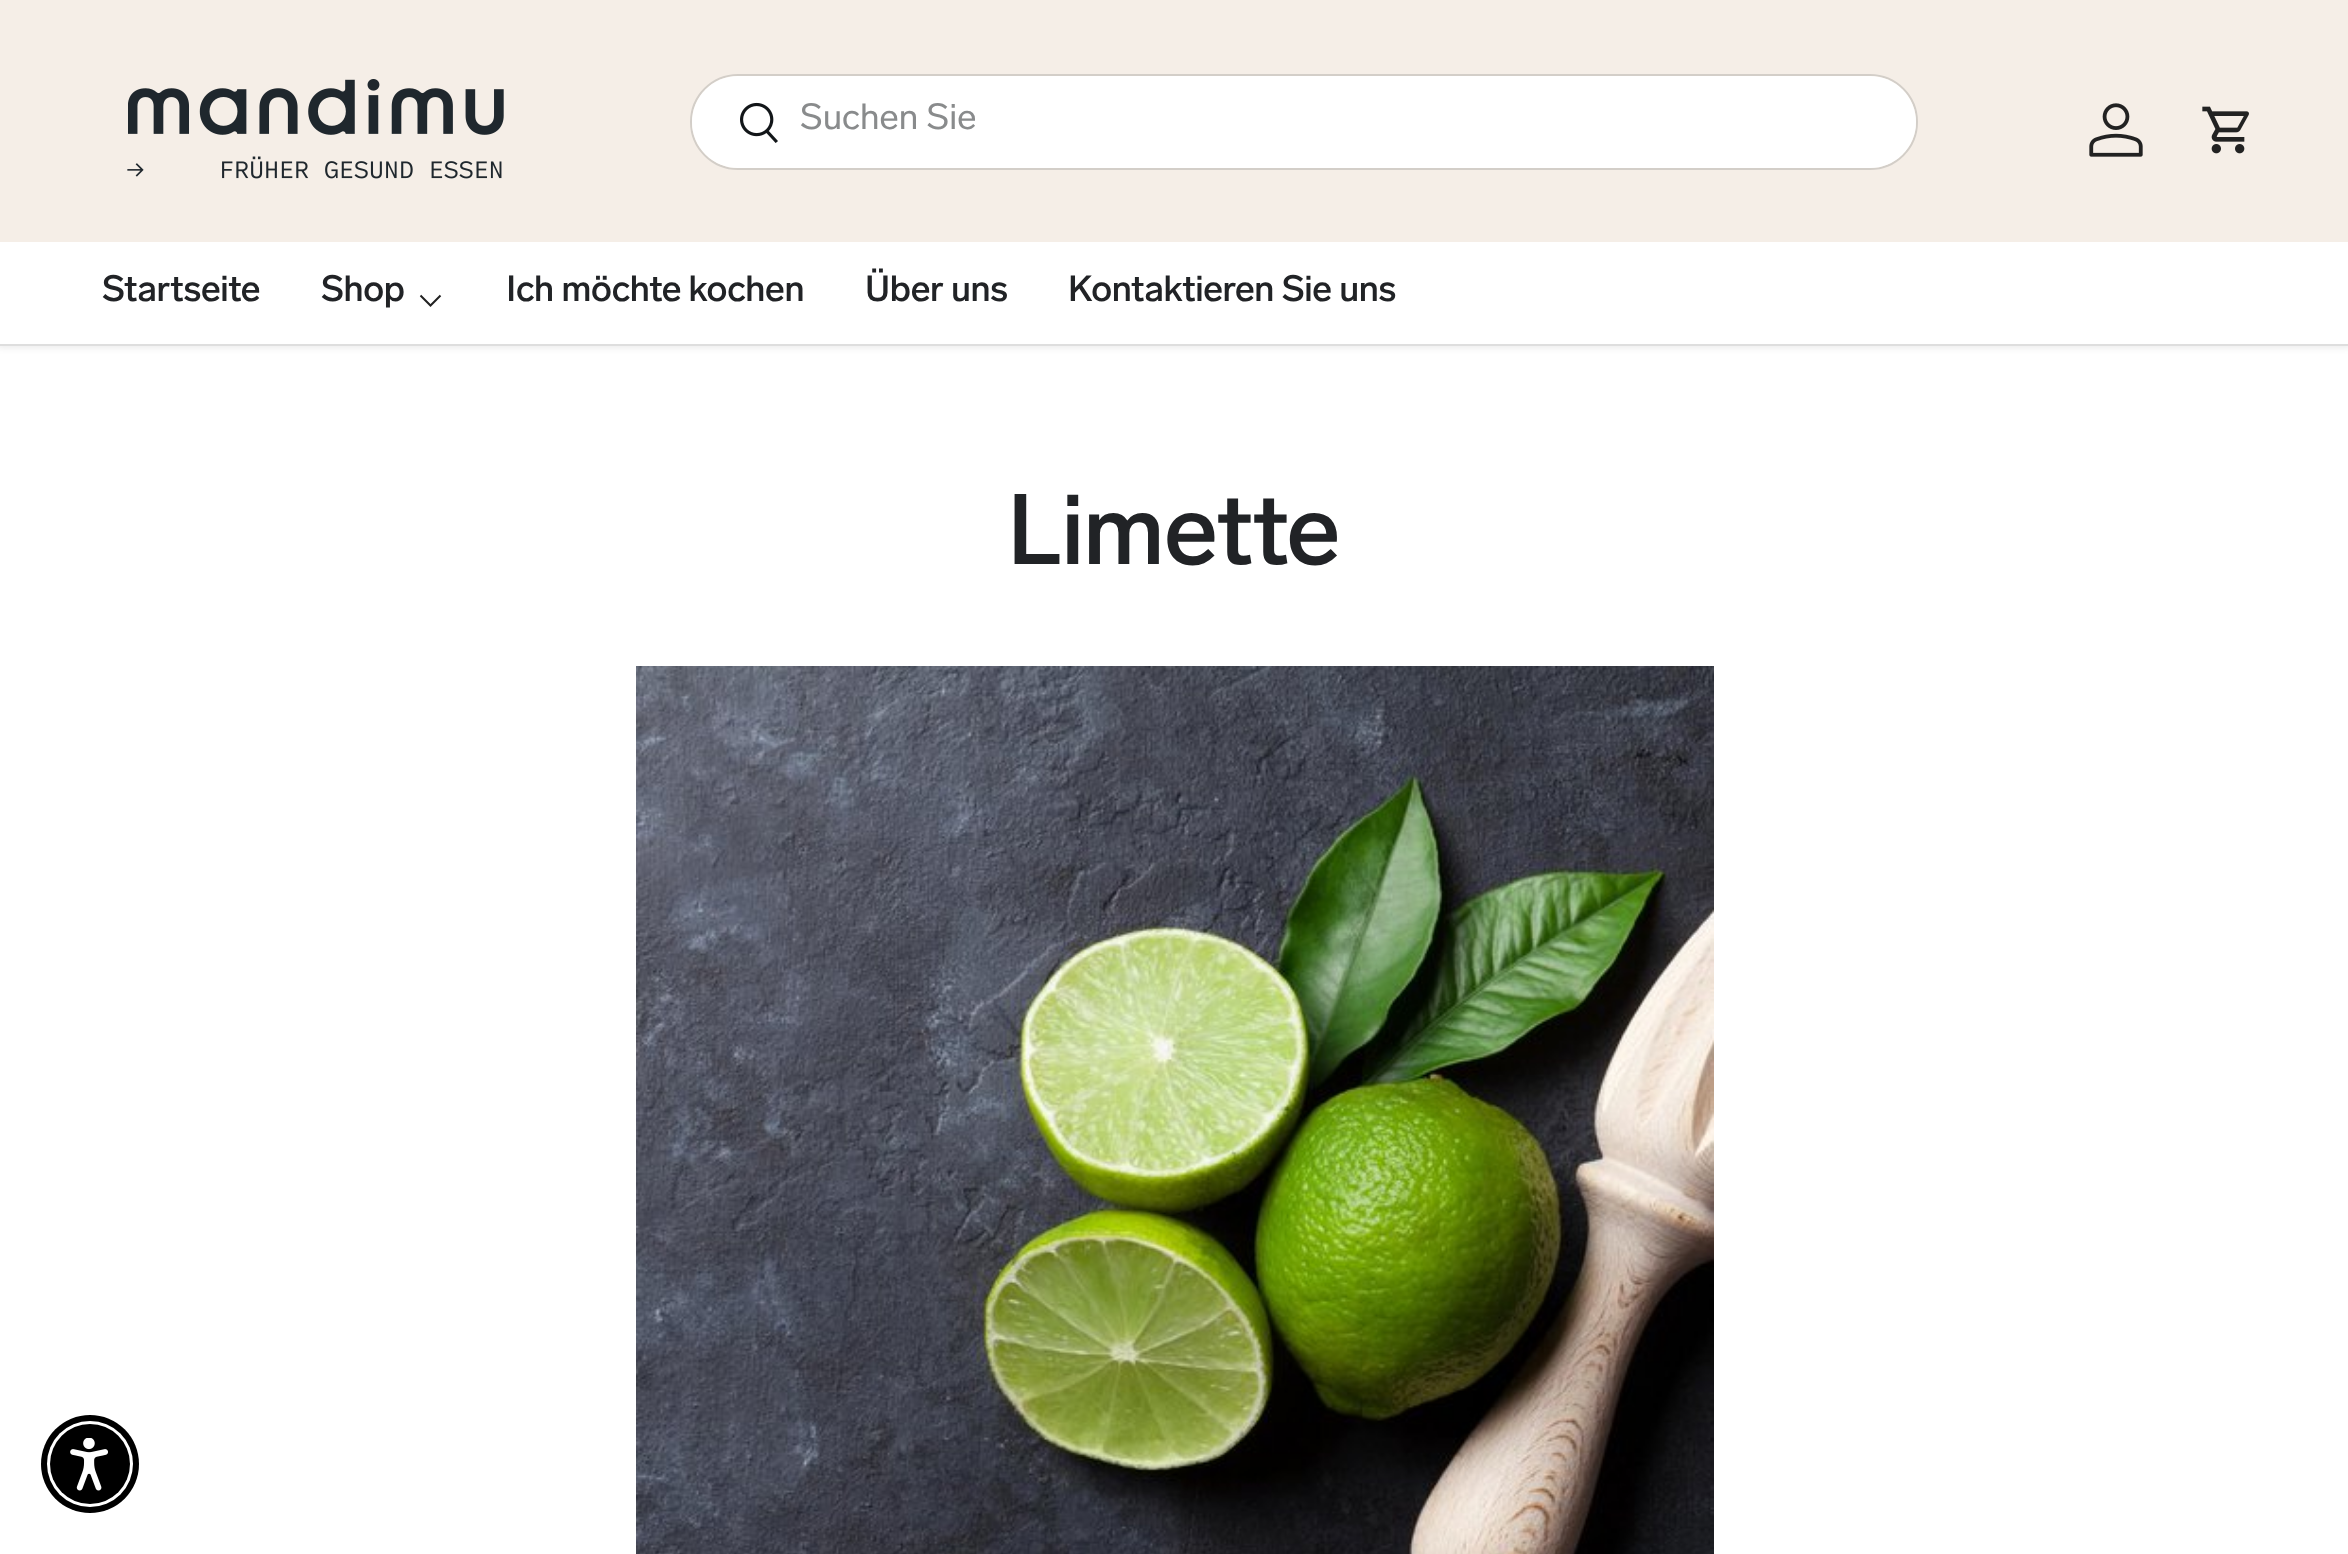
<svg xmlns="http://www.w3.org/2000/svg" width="2348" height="1554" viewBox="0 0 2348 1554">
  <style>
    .t1 { font: 36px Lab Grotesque; fill: #898b8c; }
    .t2 { font: 500 36px Lab Grotesque; letter-spacing: -0.4px; fill: #212326; }
    .t3 { font: 500 98.5px Lab Grotesque; letter-spacing: -1px; fill: #212326; }
  </style>
  <rect width="100%" height="100%" fill="#fff"/>
  <rect x="-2" y="-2" width="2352" height="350" fill="#00000014" filter="blur(3px)"/>
  <rect x="0" y="0" width="2348" height="242" fill="#f5eee7"/>
  <image x="127" y="79" width="377" height="100" href="images/1.png"/>
  <rect x="691" y="75" width="1226" height="94" rx="47" fill="none" stroke="#d3cec8" stroke-width="2"/>
  <rect x="692" y="76" width="1224" height="92" rx="46" fill="#fff"/>
  <image x="740" y="102" width="38" height="41" href="images/2.png"/>
  <text x="800" y="129" class="t1">Suchen Sie</text>
  <image x="2089" y="103" width="54" height="54" href="images/3.png"/>
  <image x="2202" y="106" width="47" height="48" href="images/4.png"/>
  <rect x="0" y="242" width="2348" height="102" fill="#fff"/>
  <text x="102" y="301" class="t2">Startseite</text>
  <text x="321" y="301" class="t2">Shop</text>
  <path d="M440.5 295.5L430.5 305.5L420.5 295.5" fill="none" stroke="#222" stroke-width="2"/>
  <text x="506" y="301" class="t2">Ich möchte kochen</text>
  <text x="865" y="301" class="t2">Über uns</text>
  <text x="1068" y="301" class="t2">Kontaktieren Sie uns</text>
  <rect x="0" y="344" width="2348" height="2" fill="#dedede"/>
  <text x="1007" y="564" class="t3">Limette</text>
  <image x="636" y="666" width="1078" height="888" href="images/5.png"/>
  <circle cx="90" cy="1464" r="49" fill="#000"/>
  <circle cx="90" cy="1464" r="43" fill="#fff"/>
  <circle cx="90" cy="1464" r="40" fill="#000"/>
  <image x="70" y="1438" width="38" height="53" href="images/6.png"/>
</svg>
